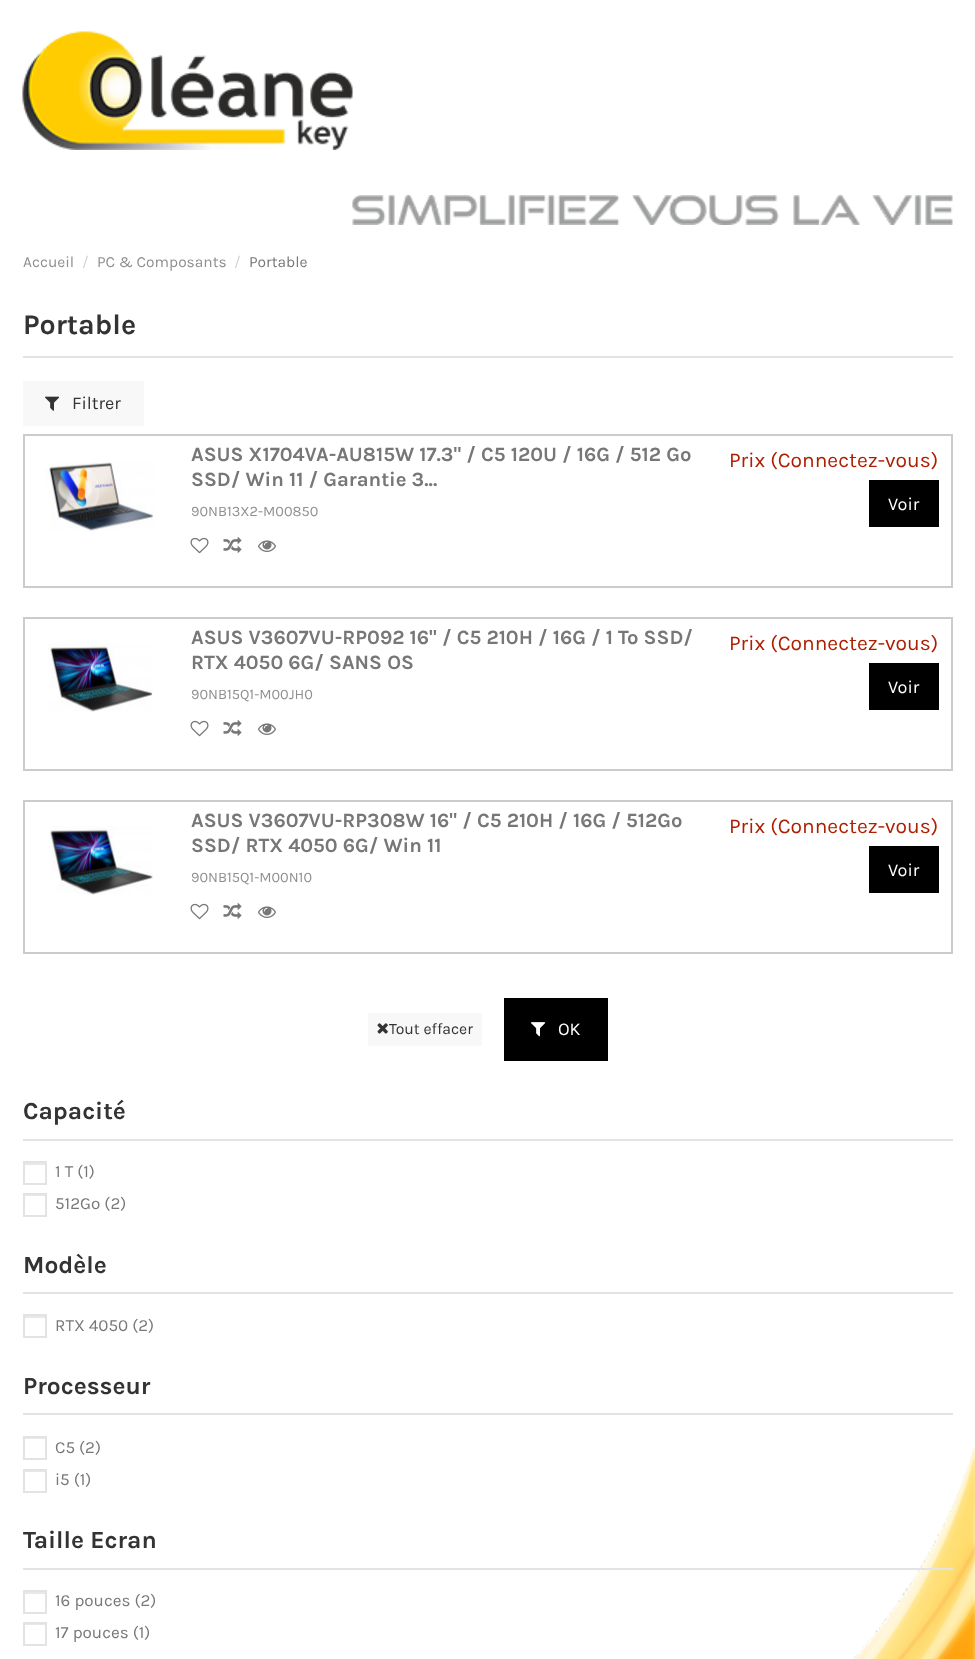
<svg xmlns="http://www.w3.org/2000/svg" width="975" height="1659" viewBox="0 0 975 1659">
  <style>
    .t1 { font: 15.5px Karla; fill: #8f8f8f; }
    .t2 { font: 15.5px Karla; fill: #d2d2d2; }
    .t3 { font: 15.5px Karla; fill: #777; }
    .t4 { font: bold 28.5px Karla; fill: #333; }
    .t5 { font: 18px Karla; fill: #333; }
    .t6 { font: bold 20.25px Karla; fill: #777; }
    .t7 { font: 14.5px Karla; fill: #8f8f8f; }
    .t8 { font: 21px Karla; fill: #ad1f00; }
    .t9 { font: 18px Karla; fill: #fff; }
    .t10 { font: 15.75px Karla; fill: #333; }
    .t11 { font: bold 24.5px Karla; fill: #333; }
    .t12 { font: 17px Karla; fill: #777; }
  </style>
  <rect width="100%" height="100%" fill="#fff"/>
  <image x="22" y="31" width="331" height="119" href="images/1.png"/>
  <image x="352" y="195" width="601" height="30" href="images/2.png"/>
  <image x="853" y="1446" width="122" height="213" href="images/3.png"/>
  <text x="23" y="267" class="t1">Accueil</text>
  <text x="82" y="267" class="t2">/</text>
  <text x="97" y="267" class="t1">PC &amp; Composants</text>
  <text x="234" y="267" class="t2">/</text>
  <text x="249" y="267" class="t3">Portable</text>
  <rect x="23" y="356" width="930" height="2" fill="#e3e3e3"/>
  <text x="23" y="334" class="t4">Portable</text>
  <rect x="23" y="381" width="121" height="45" fill="#f8f8f8"/>
  <image x="45" y="396" width="15" height="15" href="images/4.png"/>
  <text x="72" y="409" class="t5">Filtrer</text>
  <rect x="24" y="435" width="928" height="152" fill="none" stroke="#ccc" stroke-width="2"/>
  <image x="45" y="462" width="109" height="69" href="images/5.png"/>
  <text x="191" y="461" class="t6">ASUS X1704VA-AU815W 17.3" / C5 120U / 16G / 512 Go</text>
  <text x="191" y="486" class="t6">SSD/ Win 11 / Garantie 3...</text>
  <text x="191" y="516" class="t7">90NB13X2-M00850</text>
  <image x="190" y="537" width="19" height="17" href="images/6.png"/>
  <image x="223" y="537" width="19" height="16" href="images/7.png"/>
  <image x="258" y="540" width="18" height="12" href="images/8.png"/>
  <text x="729" y="467" class="t8">Prix (Connectez-vous)</text>
  <rect x="869" y="480" width="70" height="47" fill="#000"/>
  <text x="888" y="510" class="t9">Voir</text>
  <rect x="24" y="618" width="928" height="152" fill="none" stroke="#ccc" stroke-width="2"/>
  <image x="48" y="643" width="105" height="69" href="images/9.png"/>
  <text x="191" y="644" class="t6">ASUS V3607VU-RP092 16" / C5 210H / 16G / 1 To SSD/</text>
  <text x="191" y="669" class="t6">RTX 4050 6G/ SANS OS</text>
  <text x="191" y="699" class="t7">90NB15Q1-M00JH0</text>
  <image x="190" y="720" width="19" height="17" href="images/6.png"/>
  <image x="223" y="720" width="19" height="16" href="images/7.png"/>
  <image x="258" y="723" width="18" height="12" href="images/8.png"/>
  <text x="729" y="650" class="t8">Prix (Connectez-vous)</text>
  <rect x="869" y="663" width="70" height="47" fill="#000"/>
  <text x="888" y="693" class="t9">Voir</text>
  <rect x="24" y="801" width="928" height="152" fill="none" stroke="#ccc" stroke-width="2"/>
  <image x="50" y="826" width="103" height="69" href="images/10.png"/>
  <text x="191" y="827" class="t6">ASUS V3607VU-RP308W 16" / C5 210H / 16G / 512Go</text>
  <text x="191" y="852" class="t6">SSD/ RTX 4050 6G/ Win 11</text>
  <text x="191" y="882" class="t7">90NB15Q1-M00N10</text>
  <image x="190" y="903" width="19" height="17" href="images/6.png"/>
  <image x="223" y="903" width="19" height="16" href="images/7.png"/>
  <image x="258" y="906" width="18" height="12" href="images/8.png"/>
  <text x="729" y="833" class="t8">Prix (Connectez-vous)</text>
  <rect x="869" y="846" width="70" height="47" fill="#000"/>
  <text x="888" y="876" class="t9">Voir</text>
  <rect x="368" y="1013" width="114" height="33" fill="#f8f8f8"/>
  <image x="377" y="1023" width="11" height="11" href="images/11.png"/>
  <text x="389" y="1034" class="t10">Tout effacer</text>
  <rect x="504" y="998" width="104" height="63" fill="#000"/>
  <image x="531" y="1022" width="15" height="15" href="images/12.png"/>
  <text x="558" y="1035" class="t9">OK</text>
  <rect x="23" y="1139" width="930" height="2" fill="#e3e3e3"/>
  <text x="23" y="1119" class="t11">Capacité</text>
  <rect x="24" y="1163" width="21" height="2" fill="#e8e8e8"/>
  <rect x="24" y="1162" width="22" height="22" fill="none" stroke="#e3e3e3" stroke-width="2"/>
  <text x="55" y="1177" class="t12">1 T (1)</text>
  <rect x="24" y="1195" width="21" height="1" fill="#e8e8e8"/>
  <rect x="24" y="1194" width="22" height="22" fill="none" stroke="#e3e3e3" stroke-width="2"/>
  <text x="55" y="1209" class="t12">512Go (2)</text>
  <rect x="23" y="1292" width="930" height="2" fill="#e3e3e3"/>
  <text x="23" y="1273" class="t11">Modèle</text>
  <rect x="24" y="1316" width="21" height="2" fill="#e8e8e8"/>
  <rect x="24" y="1315" width="22" height="22" fill="none" stroke="#e3e3e3" stroke-width="2"/>
  <text x="55" y="1331" class="t12">RTX 4050 (2)</text>
  <rect x="23" y="1413" width="930" height="2" fill="#e3e3e3"/>
  <text x="23" y="1394" class="t11">Processeur</text>
  <rect x="24" y="1438" width="21" height="1" fill="#e8e8e8"/>
  <rect x="24" y="1437" width="22" height="22" fill="none" stroke="#e3e3e3" stroke-width="2"/>
  <text x="55" y="1453" class="t12">C5 (2)</text>
  <rect x="24" y="1471" width="21" height="1" fill="#e8e8e8"/>
  <rect x="24" y="1470" width="22" height="22" fill="none" stroke="#e3e3e3" stroke-width="2"/>
  <text x="55" y="1485" class="t12">i5 (1)</text>
  <rect x="23" y="1568" width="930" height="2" fill="#e3e3e3"/>
  <text x="23" y="1548" class="t11">Taille Ecran</text>
  <rect x="24" y="1592" width="21" height="2" fill="#e8e8e8"/>
  <rect x="24" y="1591" width="22" height="22" fill="none" stroke="#e3e3e3" stroke-width="2"/>
  <text x="55" y="1606" class="t12">16 pouces (2)</text>
  <rect x="24" y="1624" width="21" height="1" fill="#e8e8e8"/>
  <rect x="24" y="1623" width="22" height="22" fill="none" stroke="#e3e3e3" stroke-width="2"/>
  <text x="55" y="1638" class="t12">17 pouces (1)</text>
</svg>
